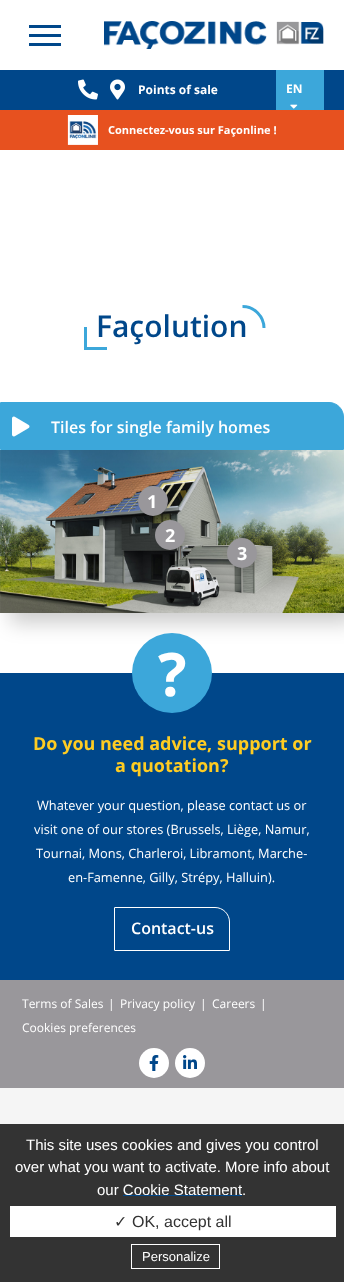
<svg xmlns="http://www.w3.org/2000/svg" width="344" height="1282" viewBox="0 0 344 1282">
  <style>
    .t1 { font: bold 12px Open Sans; fill: #fff; }
    .t2 { font: bold 11px Open Sans; fill: #fff; }
    .t3 { font: 600 30px Open Sans; fill: #00478a; }
    .t4 { font: 600 16px Open Sans; fill: #fff; }
    .t5 { font: bold 18px Open Sans; fill: #fff; }
    .t6 { font: bold 60px Open Sans; fill: #fff; }
    .t7 { font: bold 18px Open Sans; fill: #fecc22; }
    .t8 { font: 12.8px Open Sans; fill: #fff; }
    .t9 { font: 12px Open Sans; fill: #fff; }
    .t10 { font: 15px Liberation Sans; fill: #fff; }
    .t11 { font: 16px DejaVu Sans; fill: #333; }
    .t12 { font: 16px Liberation Sans; fill: #333; }
    .t13 { font: 13px Liberation Sans; fill: #fff; }
  </style>
  <rect width="100%" height="100%" fill="#f5f5f5"/>
  <rect x="0" y="150" width="344" height="523" fill="#fff"/>
  <rect x="0" y="70" width="344" height="40" fill="#00478a"/>
  <image x="78" y="79" width="20" height="21" href="images/1.png"/>
  <image x="110" y="79" width="15" height="21" href="images/2.png"/>
  <text x="138" y="94" class="t1">Points of sale</text>
  <rect x="276" y="70" width="48" height="40" fill="#3ca7da"/>
  <text x="286" y="93" class="t1">EN</text>
  <image x="290" y="104" width="8" height="5" href="images/3.png"/>
  <rect x="0" y="0" width="344" height="70" fill="#fff"/>
  <rect x="29" y="25" width="32" height="3" fill="#00478a"/>
  <rect x="29" y="34" width="32" height="3" fill="#00478a"/>
  <rect x="29" y="43" width="32" height="3" fill="#00478a"/>
  <image x="104" y="21" width="220" height="28" href="images/4.png"/>
  <rect x="0" y="110" width="344" height="40" fill="#e7511f"/>
  <image x="67" y="115" width="31" height="30" href="images/5.png"/>
  <text x="108" y="134" class="t2">Connectez-vous sur Façonline !</text>
  <rect x="84" y="347" width="23" height="3" fill="#3ca7da"/>
  <rect x="84" y="327" width="3" height="23" fill="#3ca7da"/>
  <text x="96" y="337" class="t3">Façolution</text>
  <path d="M242.5 306.5C254.5 306.5 264 316.5 264 328" fill="none" stroke="#3ca7da" stroke-width="3"/>
  <rect x="10" y="460" width="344" height="163" fill="#00000033" filter="blur(10px)"/>
  <path d="M1 402.5H329C337 402.5 343.5 409 343.5 417V449C343.5 449.5 343.5 449.5 343 449.5H1C.5 449.5 .5 449.5 .5 449V403C.5 402.5 .5 402.5 1 402.5Z" fill="#3ca7da" stroke="#3ca7da"/>
  <image x="12" y="416" width="18" height="21" href="images/6.png"/>
  <text x="51" y="433" class="t4">Tiles for single family homes</text>
  <image x="0" y="450" width="344" height="163" href="images/7.png"/>
  <rect x="143" y="491" width="30" height="30" rx="15" fill="#00000033" filter="blur(5px)"/>
  <circle cx="153" cy="501" r="15" fill="#99979b"/>
  <text x="147" y="508" class="t5">1</text>
  <rect x="160" y="525" width="30" height="30" rx="15" fill="#00000033" filter="blur(5px)"/>
  <circle cx="170" cy="535" r="15" fill="#99979b"/>
  <text x="165" y="542" class="t5">2</text>
  <rect x="232" y="543" width="30" height="30" rx="15" fill="#00000033" filter="blur(5px)"/>
  <circle cx="242" cy="553" r="15" fill="#99979b"/>
  <text x="237" y="560" class="t5">3</text>
  <rect x="0" y="673" width="344" height="307" fill="#00478a"/>
  <circle cx="172" cy="673" r="40" fill="#3ca7da"/>
  <text x="158" y="696" class="t6">?</text>
  <text x="33" y="750" class="t7">Do you need advice, support or</text>
  <text x="115" y="772" class="t7">a quotation?</text>
  <text x="37" y="810" class="t8">Whatever your question, please contact us or</text>
  <text x="34" y="834" class="t8">visit one of our stores (Brussels, Liège, Namur,</text>
  <text x="36" y="858" class="t8">Tournai, Mons, Charleroi, Libramont, Marche-</text>
  <text x="68" y="882" class="t8">en-Famenne, Gilly, Strépy, Halluin).</text>
  <path d="M115 907.5H215C223 907.5 229.5 914 229.5 922V950C229.5 950.5 229.5 950.5 229 950.5H115C114.5 950.5 114.5 950.5 114.5 950V908C114.5 907.5 114.5 907.5 115 907.5Z" fill="none" stroke="#fff"/>
  <text x="131" y="934" class="t4">Contact-us</text>
  <rect x="0" y="980" width="344" height="108" fill="#99979b"/>
  <text x="22" y="1008" class="t9">Terms of Sales</text>
  <text x="108" y="1008" class="t9">|</text>
  <text x="120" y="1008" class="t9">Privacy policy</text>
  <text x="200" y="1008" class="t9">|</text>
  <text x="212" y="1008" class="t9">Careers</text>
  <text x="260" y="1008" class="t9">|</text>
  <text x="22" y="1032" class="t9">Cookies preferences</text>
  <circle cx="154" cy="1063" r="15" fill="#fff"/>
  <image x="149" y="1055" width="10" height="16" href="images/8.png"/>
  <circle cx="190" cy="1063" r="15" fill="#fff"/>
  <image x="183" y="1055" width="14" height="14" href="images/9.png"/>
  <rect x="0" y="1124" width="344" height="158" fill="#333"/>
  <text x="26" y="1150" class="t10">This site uses cookies and gives you control</text>
  <text x="15" y="1172" class="t10">over what you want to activate. More info about</text>
  <text x="97" y="1195" class="t10">our Cookie Statement</text>
  <text x="242" y="1195" class="t10">.</text>
  <rect x="123" y="1195" width="119" height="1" fill="#00478a"/>
  <rect x="10" y="1206" width="326" height="31" fill="#fff"/>
  <text x="114" y="1227" class="t11">✓</text>
  <text x="132" y="1227" class="t12">OK, accept all</text>
  <rect x="131.5" y="1244.5" width="88" height="24" fill="none" stroke="#fff"/>
  <text x="142" y="1261" class="t13">Personalize</text>
</svg>
